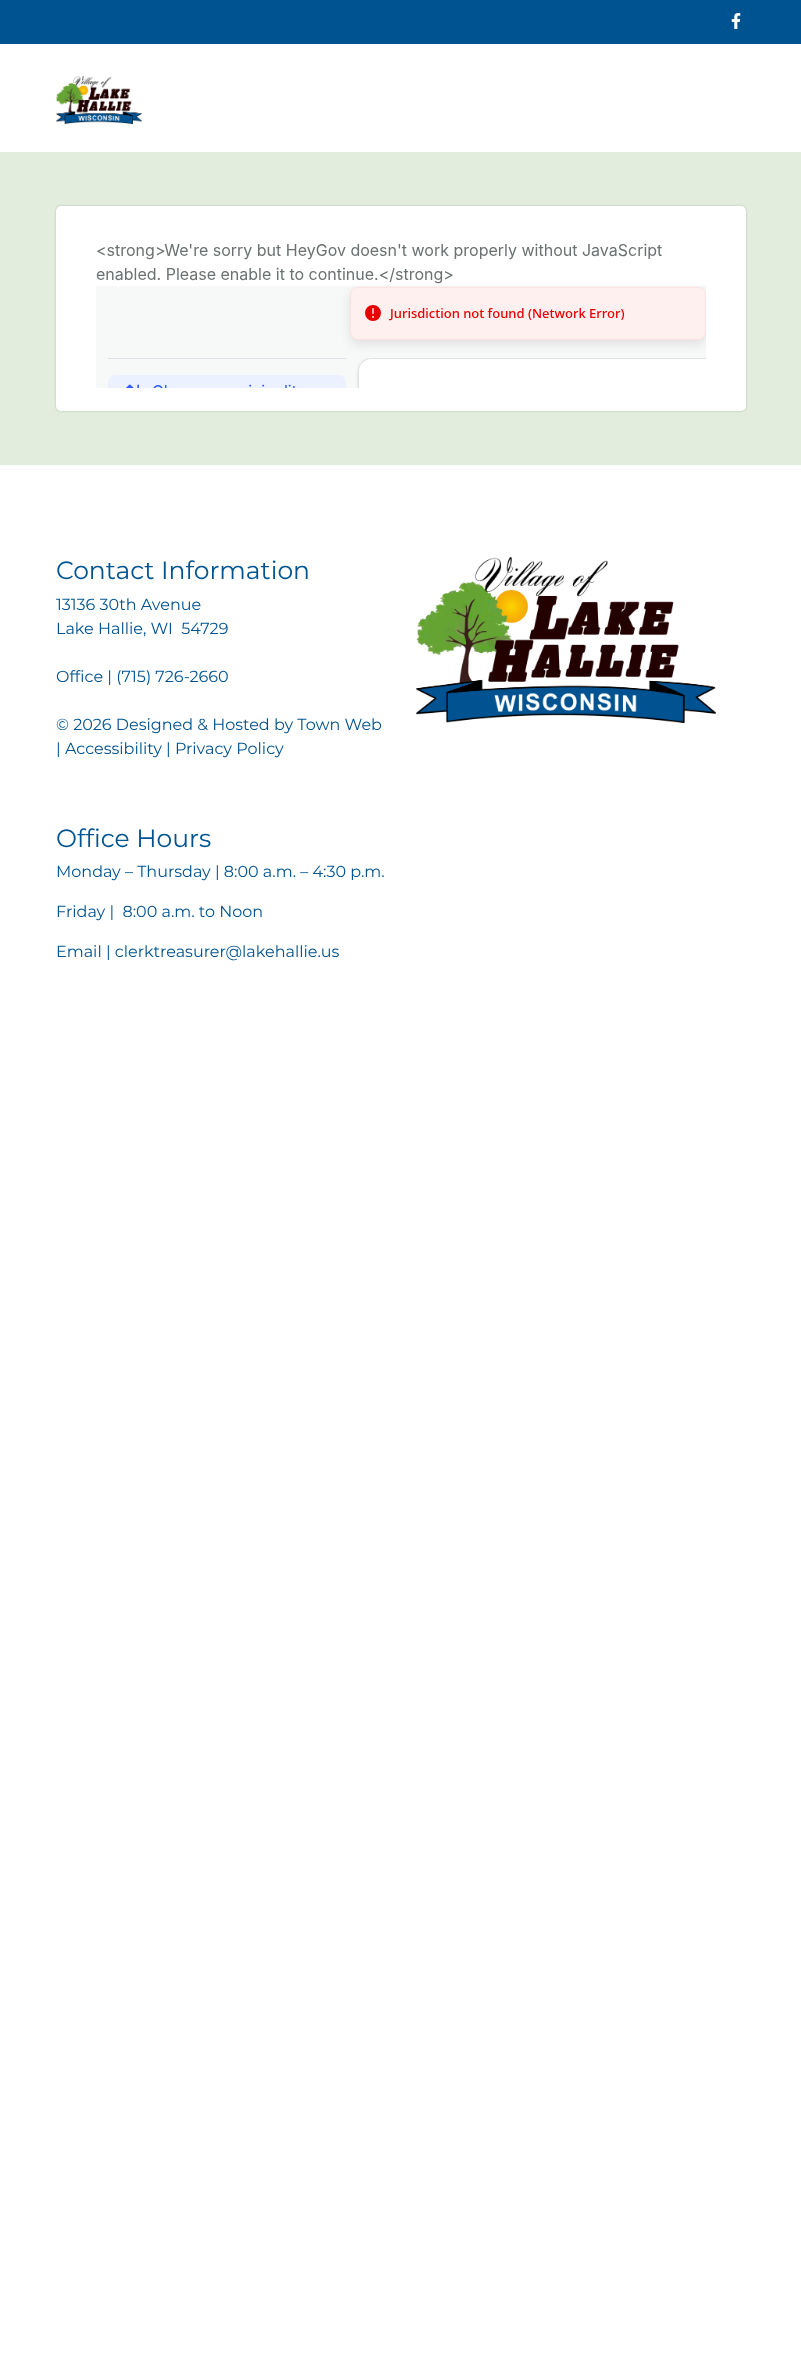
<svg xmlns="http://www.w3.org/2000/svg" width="801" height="2372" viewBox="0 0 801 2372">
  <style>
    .t1 { font: 25px Montserrat; fill: #005391; }
    .t2 { font: 16px Montserrat; fill: #005391; }
  </style>
  <rect width="100%" height="100%" fill="#fff"/>
  <rect x="0" y="0" width="801" height="44" fill="#005391"/>
  <image x="731" y="13" width="10" height="16" href="images/1.png"/>
  <image x="56" y="76" width="86" height="48" href="images/2.png"/>
  <rect x="0" y="152" width="801" height="313" fill="#e3edde"/>
  <rect x="56" y="206" width="690" height="205" rx="5" fill="#00000033" filter="blur(1px)"/>
  <rect x="56" y="206" width="690" height="205" rx="5" fill="#fff"/>
  <image x="96" y="243" width="610" height="145" href="images/3.png"/>
  <text x="56" y="579" class="t1">Contact Information</text>
  <text x="56" y="610" class="t2">13136 30th Avenue</text>
  <text x="56" y="634" class="t2" xml:space="preserve">Lake Hallie, WI  54729</text>
  <text x="56" y="682" class="t2">Office | (715) 726-2660</text>
  <text x="56" y="730" class="t2">© 2026 Designed &amp; Hosted by Town Web</text>
  <text x="56" y="754" class="t2">| Accessibility | Privacy Policy</text>
  <image x="416" y="557" width="300" height="166" href="images/4.png"/>
  <text x="56" y="847" class="t1">Office Hours</text>
  <text x="56" y="877" class="t2">Monday – Thursday | 8:00 a.m. – 4:30 p.m.</text>
  <text x="56" y="917" class="t2" xml:space="preserve">Friday |  8:00 a.m. to Noon</text>
  <text x="56" y="957" class="t2">Email | clerktreasurer@lakehallie.us</text>
</svg>
